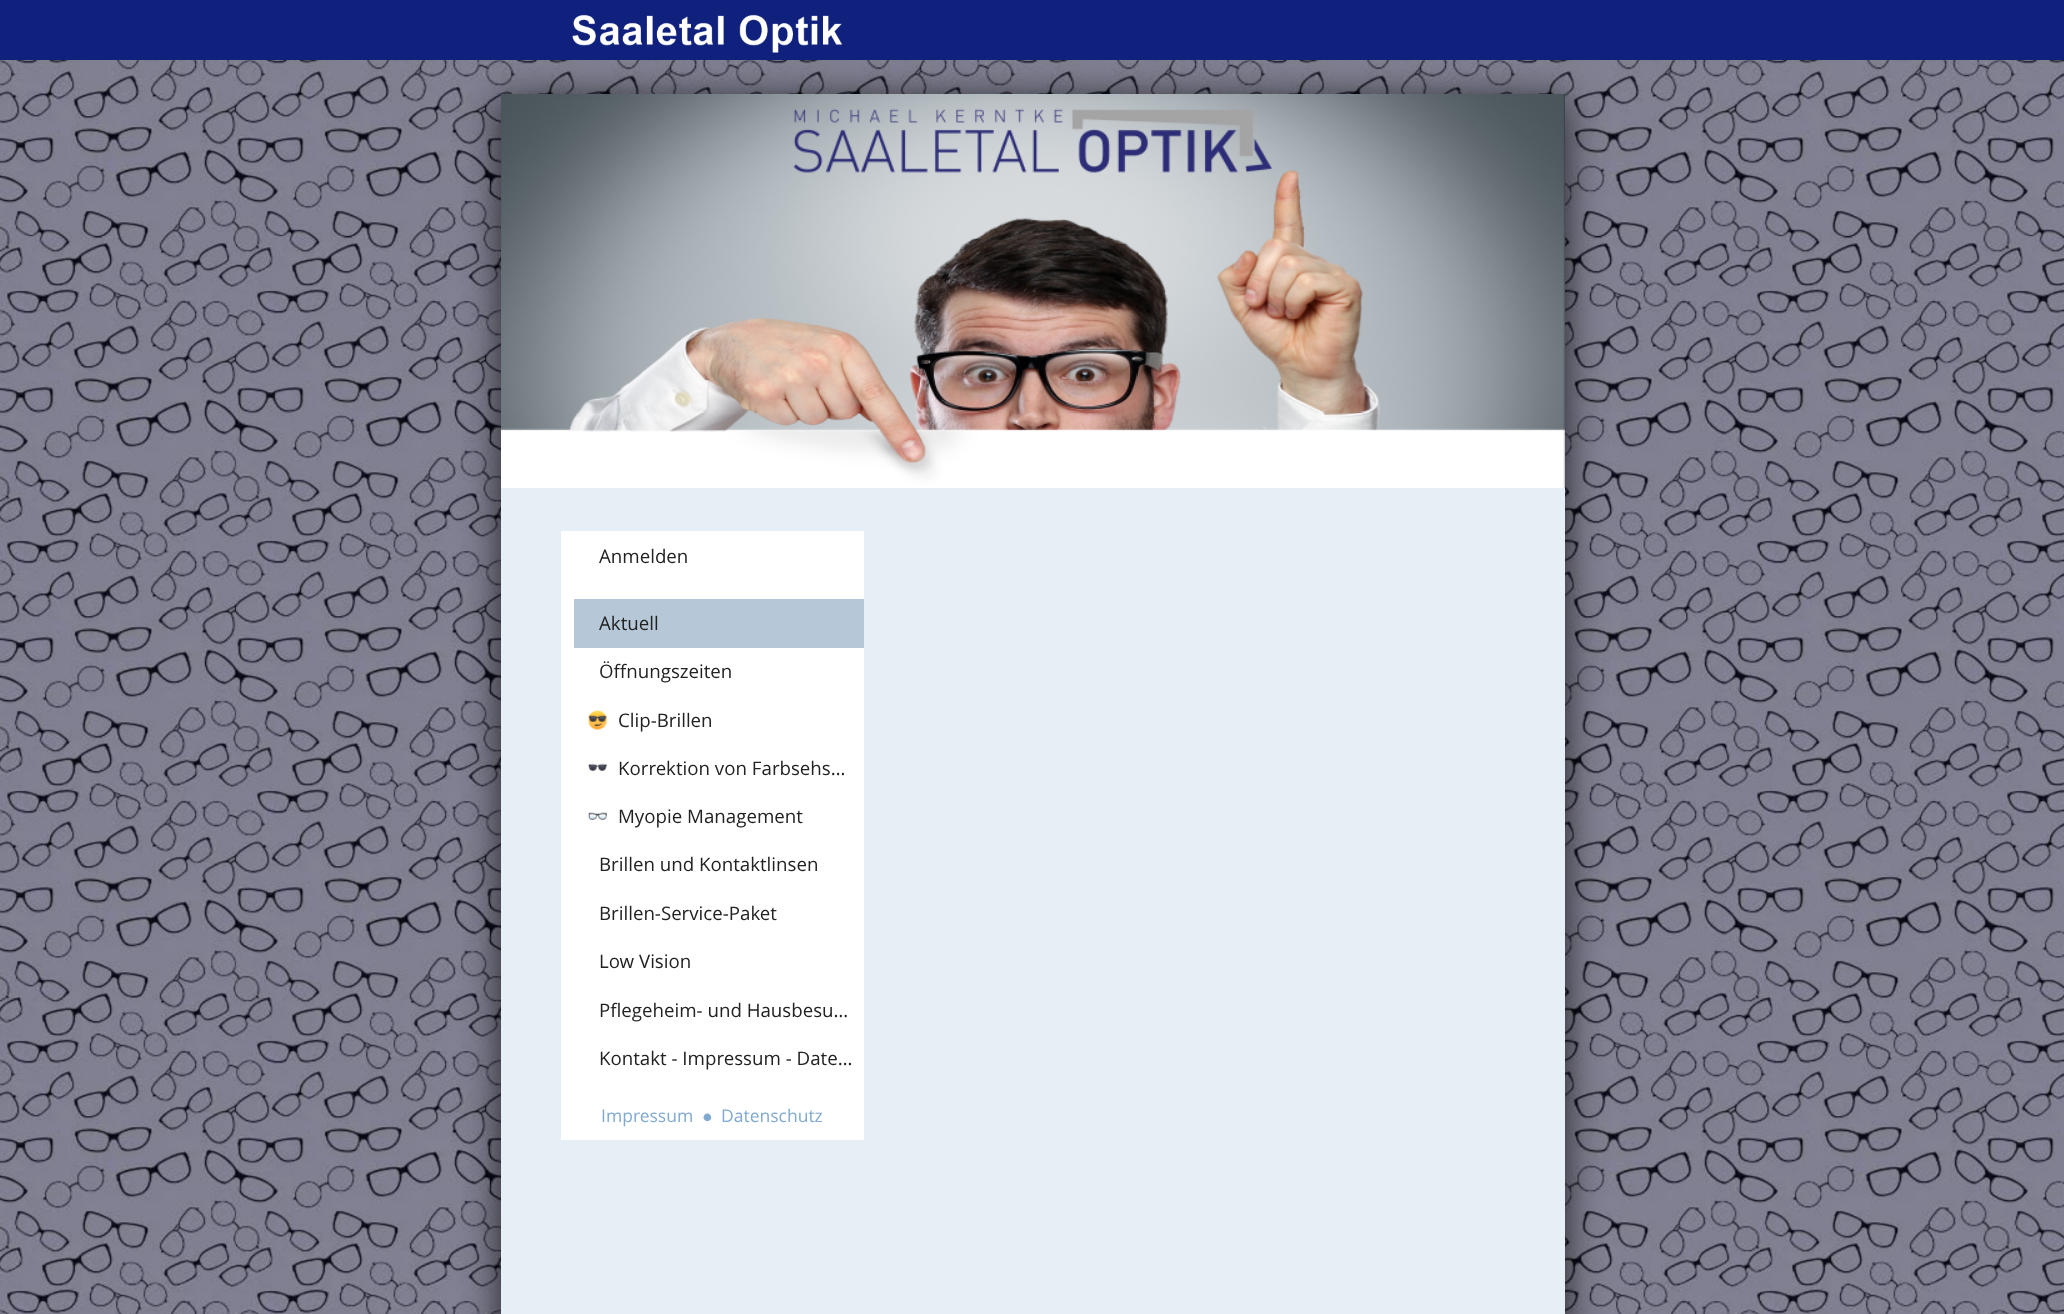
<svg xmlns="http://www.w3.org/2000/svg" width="2064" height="1314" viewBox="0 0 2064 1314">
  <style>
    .t1 { font: 18.7px Open Sans; fill: #222; }
    .t2 { font: 17.5px Open Sans; fill: #80aad2; }
    .t3 { font: 17.5px FreeSans; fill: #80aad2; }
  </style>
  <defs>
    <clipPath id="clip1"><path d="M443 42H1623V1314H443ZM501 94H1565V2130H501Z" clip-rule="evenodd"/></clipPath>
  </defs>
  <rect width="100%" height="100%" fill="#fff"/>
  <image x="0" y="60" width="2064" height="1254" href="images/1.png"/>
  <rect x="501" y="488" width="1064" height="826" fill="#e6eef6"/>
  <rect x="561" y="531" width="303" height="609" fill="#fff"/>
  <rect x="574" y="599" width="290" height="49" fill="#b6c7d7"/>
  <image x="588" y="710" width="19" height="20" href="images/4.png"/>
  <image x="588" y="763" width="19" height="8" href="images/5.png"/>
  <image x="588" y="812" width="19" height="8" href="images/6.png"/>
  <g clip-path="url(#clip1)">
    <rect x="501" y="100" width="1064" height="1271" fill="#000000bf" filter="blur(19px)"/>
  </g>
  <rect x="0" y="0" width="2064" height="60" fill="#0f217d"/>
  <image x="572" y="14" width="271" height="39" href="images/2.png"/>
  <image x="501" y="94" width="1064" height="394" href="images/3.png"/>
  <text x="599" y="563" class="t1">Anmelden</text>
  <text x="599" y="630" class="t1">Aktuell</text>
  <text x="599" y="678" class="t1">Öffnungszeiten</text>
  <text x="618" y="727" class="t1">Clip-Brillen</text>
  <text x="618" y="775" class="t1">Korrektion von Farbsehs…</text>
  <text x="618" y="823" class="t1">Myopie Management</text>
  <text x="599" y="871" class="t1">Brillen und Kontaktlinsen</text>
  <text x="599" y="920" class="t1">Brillen-Service-Paket</text>
  <text x="599" y="968" class="t1">Low Vision</text>
  <text x="599" y="1017" class="t1">Pflegeheim- und Hausbesu…</text>
  <text x="599" y="1065" class="t1">Kontakt - Impressum - Date…</text>
  <text x="601" y="1122" class="t2">Impressum</text>
  <text x="703" y="1122" class="t3">⦁</text>
  <text x="721" y="1122" class="t2">Datenschutz</text>
</svg>
